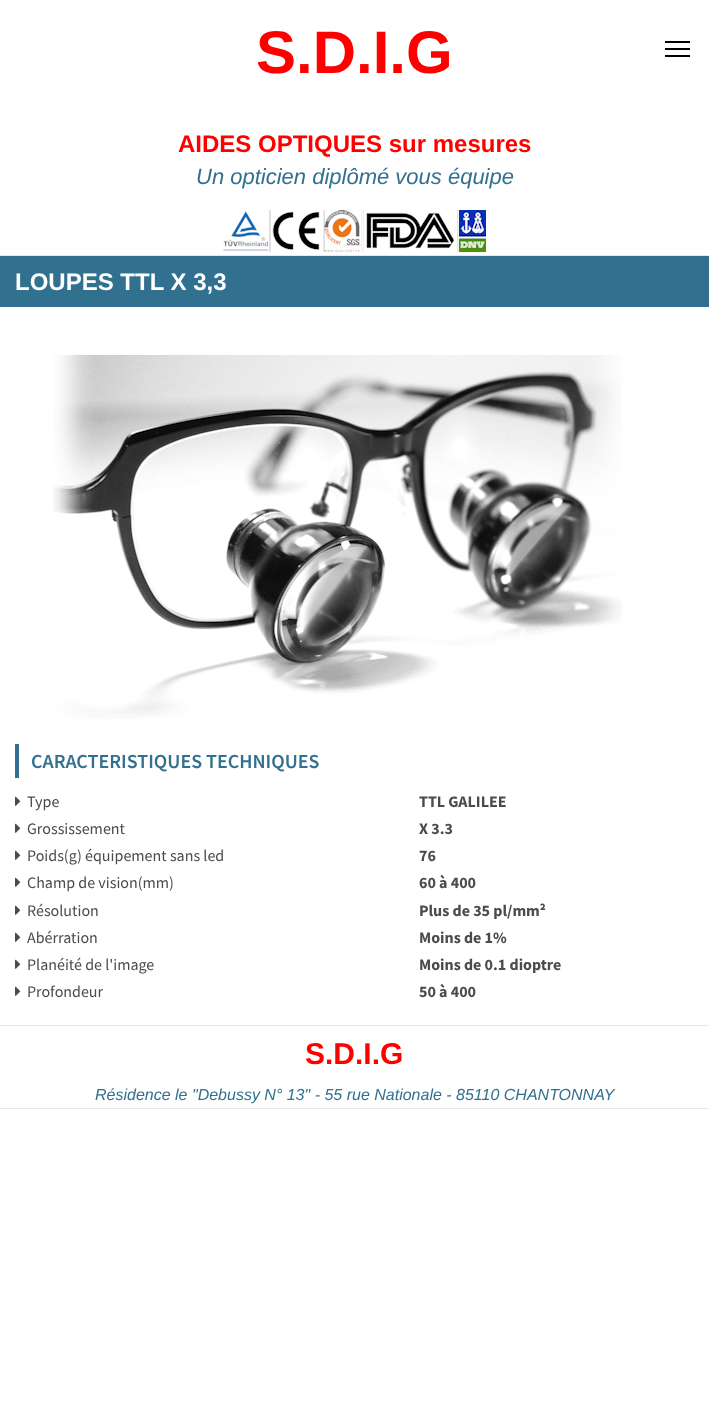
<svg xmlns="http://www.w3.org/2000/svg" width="709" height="1414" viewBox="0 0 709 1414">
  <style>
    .t1 { font: bold 60px Liberation Sans; fill: #f00; }
    .t2 { font: bold 24px Liberation Sans; fill: #f00; }
    .t3 { font: italic 22px Liberation Sans; fill: #31708f; }
    .t4 { font: bold 24px Liberation Sans; fill: #fff; }
    .t5 { font: 600 20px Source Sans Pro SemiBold; fill: #31708f; }
    .t6 { font: 16px Source Sans Pro; fill: #4c4b4b; }
    .t7 { font: bold 16px Source Sans Pro; fill: #4c4b4b; }
    .t8 { font: bold 30px Liberation Sans; fill: #f00; }
    .t9 { font: italic 16px Liberation Sans; fill: #31708f; }
  </style>
  <rect width="100%" height="100%" fill="#fff"/>
  <rect x="0" y="255" width="709" height="1" fill="#e8e8e8"/>
  <text x="256" y="73" class="t1">S.D.I.G</text>
  <text x="178" y="152" class="t2">AIDES OPTIQUES sur mesures</text>
  <text x="196" y="184" class="t3">Un opticien diplômé vous équipe</text>
  <image x="223" y="210" width="263" height="42" href="images/1.png"/>
  <rect x="665" y="48" width="25" height="2" fill="#000"/>
  <rect x="665" y="41" width="25" height="2" fill="#000"/>
  <rect x="665" y="55" width="25" height="2" fill="#000"/>
  <rect x="0" y="256" width="709" height="51" fill="#31708f"/>
  <text x="15" y="290" class="t4">LOUPES TTL X 3,3</text>
  <image x="53" y="355" width="569" height="364" href="images/2.png"/>
  <rect x="15" y="744" width="4" height="34" fill="#31708f"/>
  <text x="31" y="768" class="t5">CARACTERISTIQUES TECHNIQUES</text>
  <image x="15" y="796" width="6" height="10" href="images/3.png"/>
  <text x="27" y="807" class="t6">Type</text>
  <text x="419" y="807" class="t7">TTL GALILEE</text>
  <image x="15" y="823" width="6" height="10" href="images/3.png"/>
  <text x="27" y="834" class="t6">Grossissement</text>
  <text x="419" y="834" class="t7">X 3.3</text>
  <image x="15" y="850" width="6" height="10" href="images/3.png"/>
  <text x="27" y="861" class="t6">Poids(g) équipement sans led</text>
  <text x="419" y="861" class="t7">76</text>
  <image x="15" y="877" width="6" height="10" href="images/3.png"/>
  <text x="27" y="888" class="t6">Champ de vision(mm)</text>
  <text x="419" y="888" class="t7">60 à 400</text>
  <image x="15" y="905" width="6" height="10" href="images/3.png"/>
  <text x="27" y="916" class="t6">Résolution</text>
  <text x="419" y="916" class="t7">Plus de 35 pl/mm²</text>
  <image x="15" y="932" width="6" height="10" href="images/3.png"/>
  <text x="27" y="943" class="t6">Abérration</text>
  <text x="419" y="943" class="t7">Moins de 1%</text>
  <image x="15" y="959" width="6" height="10" href="images/3.png"/>
  <text x="27" y="970" class="t6">Planéité de l'image</text>
  <text x="419" y="970" class="t7">Moins de 0.1 dioptre</text>
  <image x="15" y="986" width="6" height="10" href="images/3.png"/>
  <text x="27" y="997" class="t6">Profondeur</text>
  <text x="419" y="997" class="t7">50 à 400</text>
  <rect x="0" y="1025" width="709" height="1" fill="#e8e8e8"/>
  <rect x="0" y="1108" width="709" height="1" fill="#e8e8e8"/>
  <text x="305" y="1064" class="t8">S.D.I.G</text>
  <text x="95" y="1100" class="t9">Résidence le "Debussy N° 13" - 55 rue Nationale - 85110 CHANTONNAY</text>
</svg>
